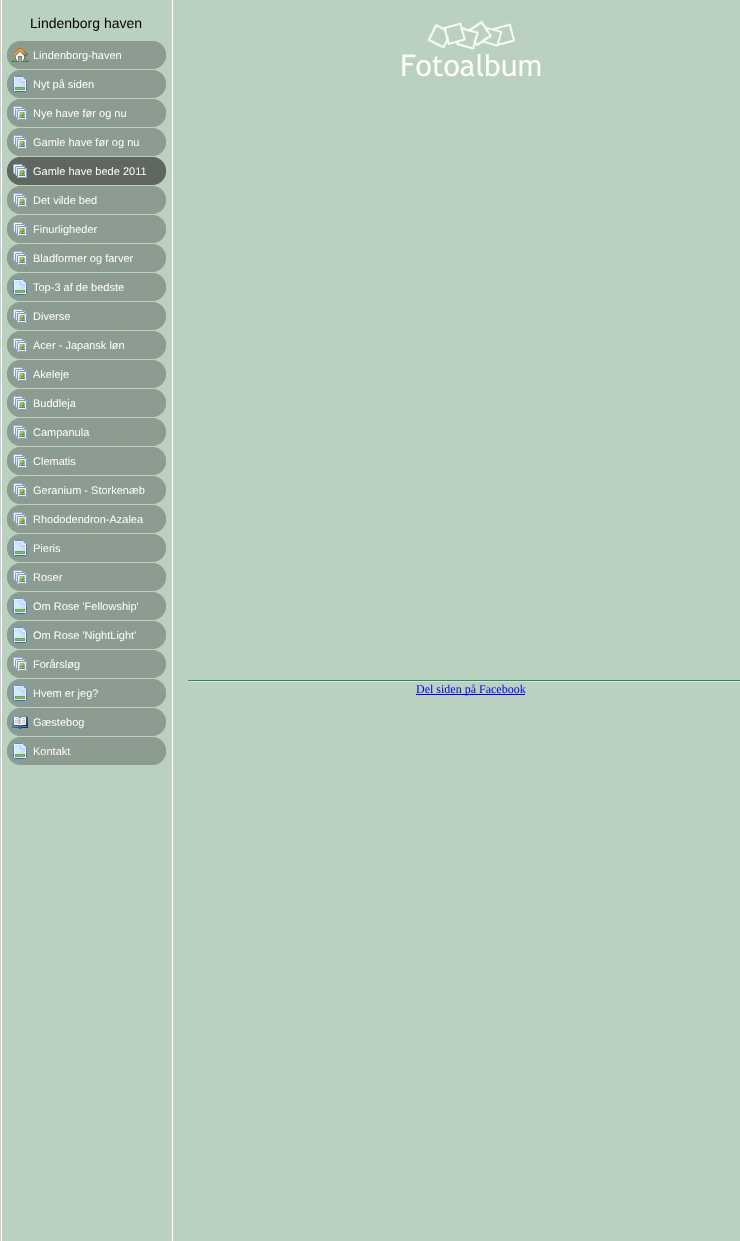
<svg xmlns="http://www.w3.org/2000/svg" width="740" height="1241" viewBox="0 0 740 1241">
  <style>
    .t1 { font: 14px Liberation Sans; fill: #000; }
    .t2 { font: 11px Liberation Sans; fill: #fff; }
    .t3 { font: 12px Liberation Serif; fill: #00e; }
  </style>
  <rect width="100%" height="100%" fill="#fff"/>
  <rect x="0" y="0" width="1" height="1241" fill="#ccc"/>
  <rect x="2" y="0" width="169" height="1241" fill="#bad1c0"/>
  <text x="30" y="28" class="t1">Lindenborg haven</text>
  <image x="7" y="41" width="159" height="28" href="images/1.png"/>
  <image x="12" y="48" width="16" height="14" href="images/2.png"/>
  <text x="33" y="59" class="t2">Lindenborg-haven</text>
  <image x="7" y="70" width="159" height="28" href="images/1.png"/>
  <image x="13" y="76" width="14" height="16" href="images/3.png"/>
  <text x="33" y="88" class="t2">Nyt på siden</text>
  <image x="7" y="99" width="159" height="28" href="images/1.png"/>
  <image x="13" y="106" width="14" height="14" href="images/4.png"/>
  <text x="33" y="117" class="t2">Nye have før og nu</text>
  <image x="7" y="128" width="159" height="28" href="images/1.png"/>
  <image x="13" y="135" width="14" height="14" href="images/4.png"/>
  <text x="33" y="146" class="t2">Gamle have før og nu</text>
  <image x="7" y="157" width="159" height="28" href="images/5.png"/>
  <image x="13" y="164" width="14" height="14" href="images/6.png"/>
  <text x="33" y="175" class="t2">Gamle have bede 2011</text>
  <image x="7" y="186" width="159" height="28" href="images/1.png"/>
  <image x="13" y="193" width="14" height="14" href="images/4.png"/>
  <text x="33" y="204" class="t2">Det vilde bed</text>
  <image x="7" y="215" width="159" height="28" href="images/1.png"/>
  <image x="13" y="222" width="14" height="14" href="images/4.png"/>
  <text x="33" y="233" class="t2">Finurligheder</text>
  <image x="7" y="244" width="159" height="28" href="images/1.png"/>
  <image x="13" y="251" width="14" height="14" href="images/4.png"/>
  <text x="33" y="262" class="t2">Bladformer og farver</text>
  <image x="7" y="273" width="159" height="28" href="images/1.png"/>
  <image x="13" y="279" width="14" height="16" href="images/3.png"/>
  <text x="33" y="291" class="t2">Top-3 af de bedste</text>
  <image x="7" y="302" width="159" height="28" href="images/1.png"/>
  <image x="13" y="309" width="14" height="14" href="images/4.png"/>
  <text x="33" y="320" class="t2">Diverse</text>
  <image x="7" y="331" width="159" height="28" href="images/1.png"/>
  <image x="13" y="338" width="14" height="14" href="images/4.png"/>
  <text x="33" y="349" class="t2">Acer - Japansk løn</text>
  <image x="7" y="360" width="159" height="28" href="images/1.png"/>
  <image x="13" y="367" width="14" height="14" href="images/4.png"/>
  <text x="33" y="378" class="t2">Akeleje</text>
  <image x="7" y="389" width="159" height="28" href="images/1.png"/>
  <image x="13" y="396" width="14" height="14" href="images/4.png"/>
  <text x="33" y="407" class="t2">Buddleja</text>
  <image x="7" y="418" width="159" height="28" href="images/1.png"/>
  <image x="13" y="425" width="14" height="14" href="images/4.png"/>
  <text x="33" y="436" class="t2">Campanula</text>
  <image x="7" y="447" width="159" height="28" href="images/1.png"/>
  <image x="13" y="454" width="14" height="14" href="images/4.png"/>
  <text x="33" y="465" class="t2">Clematis</text>
  <image x="7" y="476" width="159" height="28" href="images/1.png"/>
  <image x="13" y="483" width="14" height="14" href="images/4.png"/>
  <text x="33" y="494" class="t2">Geranium - Storkenæb</text>
  <image x="7" y="505" width="159" height="28" href="images/1.png"/>
  <image x="13" y="512" width="14" height="14" href="images/4.png"/>
  <text x="33" y="523" class="t2">Rhododendron-Azalea</text>
  <image x="7" y="534" width="159" height="28" href="images/1.png"/>
  <image x="13" y="540" width="14" height="16" href="images/3.png"/>
  <text x="33" y="552" class="t2">Pieris</text>
  <image x="7" y="563" width="159" height="28" href="images/1.png"/>
  <image x="13" y="570" width="14" height="14" href="images/4.png"/>
  <text x="33" y="581" class="t2">Roser</text>
  <image x="7" y="592" width="159" height="28" href="images/1.png"/>
  <image x="13" y="598" width="14" height="16" href="images/3.png"/>
  <text x="33" y="610" class="t2">Om Rose 'Fellowship'</text>
  <image x="7" y="621" width="159" height="28" href="images/1.png"/>
  <image x="13" y="627" width="14" height="16" href="images/3.png"/>
  <text x="33" y="639" class="t2">Om Rose 'NightLight'</text>
  <image x="7" y="650" width="159" height="28" href="images/1.png"/>
  <image x="13" y="657" width="14" height="14" href="images/4.png"/>
  <text x="33" y="668" class="t2">Forårsløg</text>
  <image x="7" y="679" width="159" height="28" href="images/1.png"/>
  <image x="13" y="685" width="14" height="16" href="images/3.png"/>
  <text x="33" y="697" class="t2">Hvem er jeg?</text>
  <image x="7" y="708" width="159" height="28" href="images/1.png"/>
  <image x="12" y="716" width="16" height="13" href="images/7.png"/>
  <text x="33" y="726" class="t2">Gæstebog</text>
  <image x="7" y="737" width="159" height="28" href="images/1.png"/>
  <image x="13" y="743" width="14" height="16" href="images/3.png"/>
  <text x="33" y="755" class="t2">Kontakt</text>
  <rect x="171" y="0" width="1" height="1241" fill="#ccc"/>
  <rect x="173" y="0" width="567" height="1241" fill="#bad1c0"/>
  <image x="402" y="20" width="139" height="57" href="images/8.png"/>
  <rect x="188" y="680" width="552" height="1" fill="#32807d"/>
  <rect x="188" y="681" width="552" height="1" fill="#d3eace"/>
  <rect x="416" y="694" width="109" height="1" fill="#00e"/>
  <text x="416" y="693" class="t3">Del siden på Facebook</text>
</svg>
